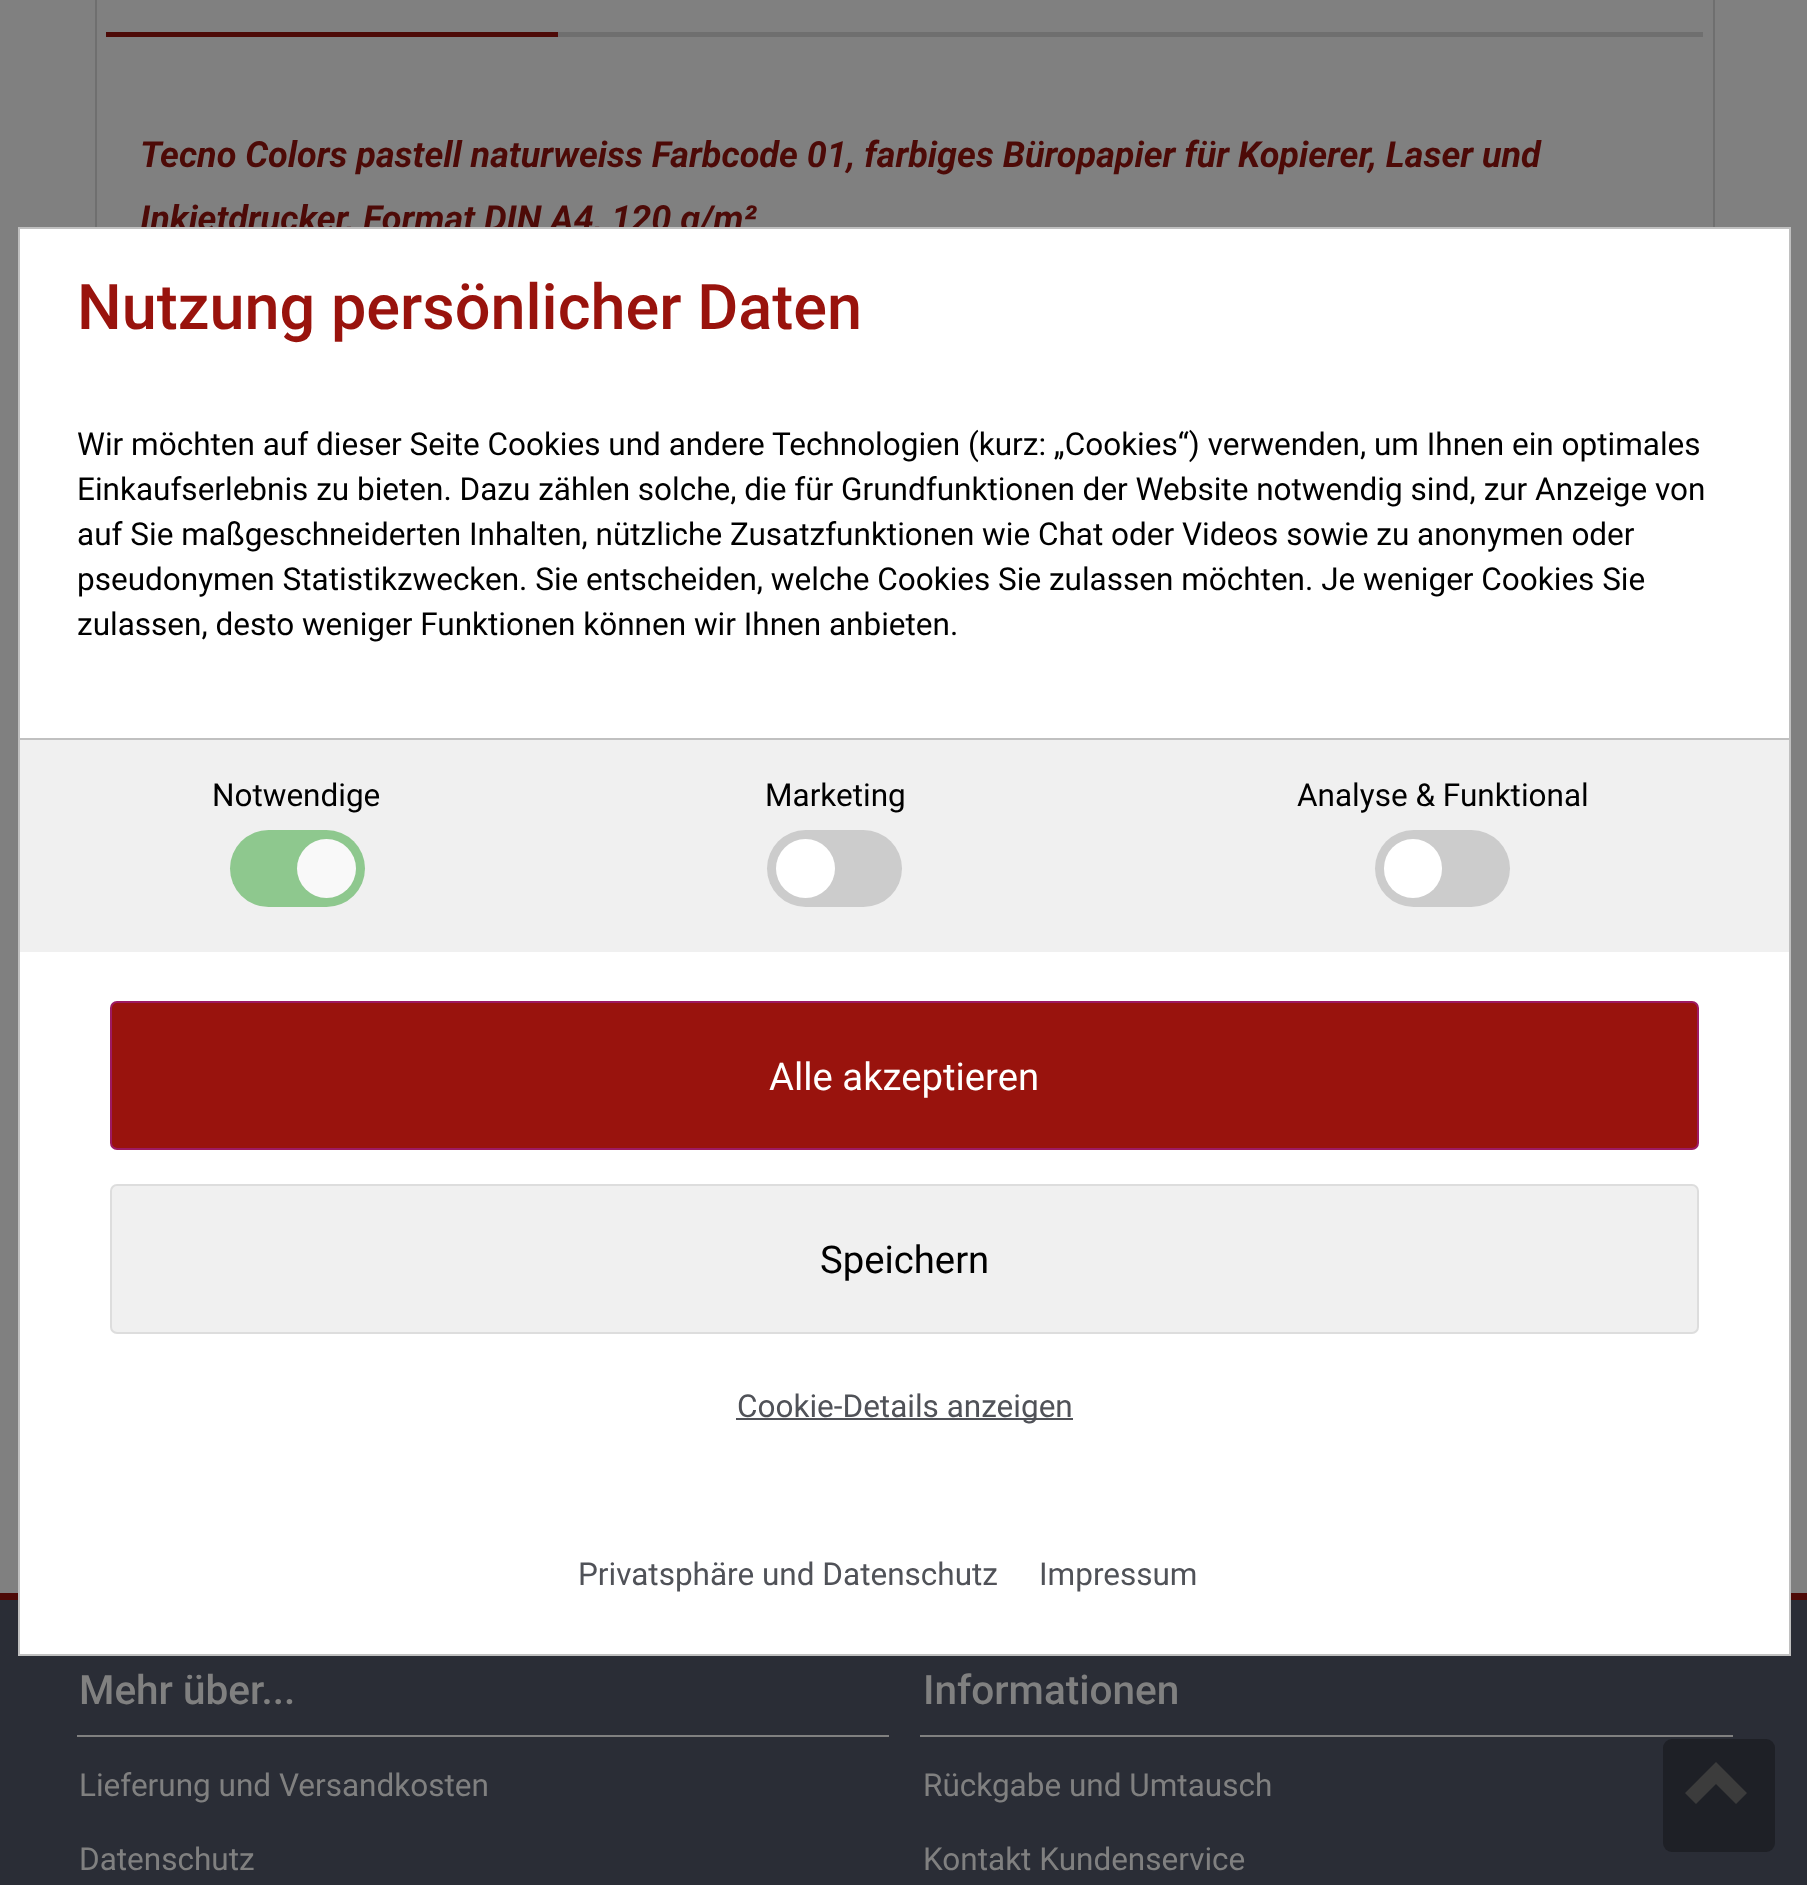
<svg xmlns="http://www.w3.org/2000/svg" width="1807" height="1885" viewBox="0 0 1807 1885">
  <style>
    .t1 { font: italic bold 36px Roboto; fill: #4d0a07; }
    .t2 { font: 500 40.5px Roboto; fill: #808080; }
    .t3 { font: 31.5px Roboto; fill: #808080; }
    .t4 { font: 500 63px Roboto; fill: #99130d; }
    .t5 { font: 31.5px Roboto; fill: #000; }
    .t6 { font: 38.25px Roboto; fill: #fff; }
    .t7 { font: 38.25px Roboto; fill: #000; }
    .t8 { font: 31.5px Roboto; fill: #505258; }
  </style>
  <rect width="100%" height="100%" fill="#808080"/>
  <rect x="96" y="-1" width="1618" height="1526" fill="none" stroke="#6f6f6f" stroke-width="2"/>
  <rect x="558" y="32" width="1145" height="5" fill="#6f6f6f"/>
  <rect x="106" y="32" width="452" height="5" fill="#4d0a07"/>
  <text x="140" y="167" class="t1">Tecno Colors pastell naturweiss Farbcode 01, farbiges Büropapier für Kopierer, Laser und</text>
  <text x="140" y="231" class="t1">Inkjetdrucker, Format DIN A4, 120 g/m²</text>
  <rect x="0" y="1600" width="1807" height="285" fill="#2a2d36"/>
  <rect x="0" y="1593" width="1807" height="7" fill="#4d0a07"/>
  <rect x="77" y="1735" width="812" height="2" fill="#808080"/>
  <text x="79" y="1704" class="t2">Mehr über...</text>
  <text x="79" y="1796" class="t3">Lieferung und Versandkosten</text>
  <text x="79" y="1870" class="t3">Datenschutz</text>
  <rect x="920" y="1735" width="813" height="2" fill="#808080"/>
  <text x="923" y="1704" class="t2">Informationen</text>
  <text x="923" y="1796" class="t3">Rückgabe und Umtausch</text>
  <text x="923" y="1870" class="t3">Kontakt Kundenservice</text>
  <rect x="19" y="228" width="1771" height="1427" fill="#fff" stroke="#c0c0c0" stroke-width="2"/>
  <text x="77" y="329" class="t4">Nutzung persönlicher Daten</text>
  <text x="77" y="455" class="t5">Wir möchten auf dieser Seite Cookies und andere Technologien (kurz: „Cookies“) verwenden, um Ihnen ein optimales</text>
  <text x="77" y="500" class="t5">Einkaufserlebnis zu bieten. Dazu zählen solche, die für Grundfunktionen der Website notwendig sind, zur Anzeige von</text>
  <text x="77" y="545" class="t5">auf Sie maßgeschneiderten Inhalten, nützliche Zusatzfunktionen wie Chat oder Videos sowie zu anonymen oder</text>
  <text x="77" y="590" class="t5">pseudonymen Statistikzwecken. Sie entscheiden, welche Cookies Sie zulassen möchten. Je weniger Cookies Sie</text>
  <text x="77" y="635" class="t5">zulassen, desto weniger Funktionen können wir Ihnen anbieten.</text>
  <rect x="20" y="740" width="1769" height="212" fill="#f0f0f0"/>
  <rect x="20" y="738" width="1769" height="2" fill="#c0c0c0"/>
  <text x="212" y="806" class="t5">Notwendige</text>
  <rect x="230" y="830" width="135" height="77" rx="38.5" fill="#8ec88e"/>
  <circle cx="326.5" cy="868.5" r="29.5" fill="#f9f9f9"/>
  <text x="765" y="806" class="t5">Marketing</text>
  <rect x="767" y="830" width="135" height="77" rx="38.5" fill="#ccc"/>
  <circle cx="805.5" cy="868.5" r="29.5" fill="#fff"/>
  <text x="1297" y="806" class="t5">Analyse &amp; Funktional</text>
  <rect x="1375" y="830" width="135" height="77" rx="38.5" fill="#ccc"/>
  <rect x="1384" y="839" width="58" height="59" rx="29" fill="#fff"/>
  <rect x="111" y="1002" width="1587" height="147" rx="6" fill="#99130d" stroke="#9d1a62" stroke-width="2"/>
  <text x="769" y="1090" class="t6">Alle akzeptieren</text>
  <rect x="111" y="1185" width="1587" height="148" rx="6" fill="#f0f0f0" stroke="#ddd" stroke-width="2"/>
  <text x="820" y="1273" class="t7">Speichern</text>
  <rect x="736" y="1418" width="337" height="2" fill="#505258"/>
  <text x="737" y="1417" class="t8">Cookie-Details anzeigen</text>
  <text x="578" y="1585" class="t8">Privatsphäre und Datenschutz</text>
  <text x="1039" y="1585" class="t8">Impressum</text>
  <rect x="1663" y="1739" width="112" height="113" rx="9" fill="#1e2026"/>
  <path d="M1747 1793L1736 1804L1716 1784L1696 1804L1685 1793L1716 1762Z" fill="#3c3c3c"/>
</svg>
